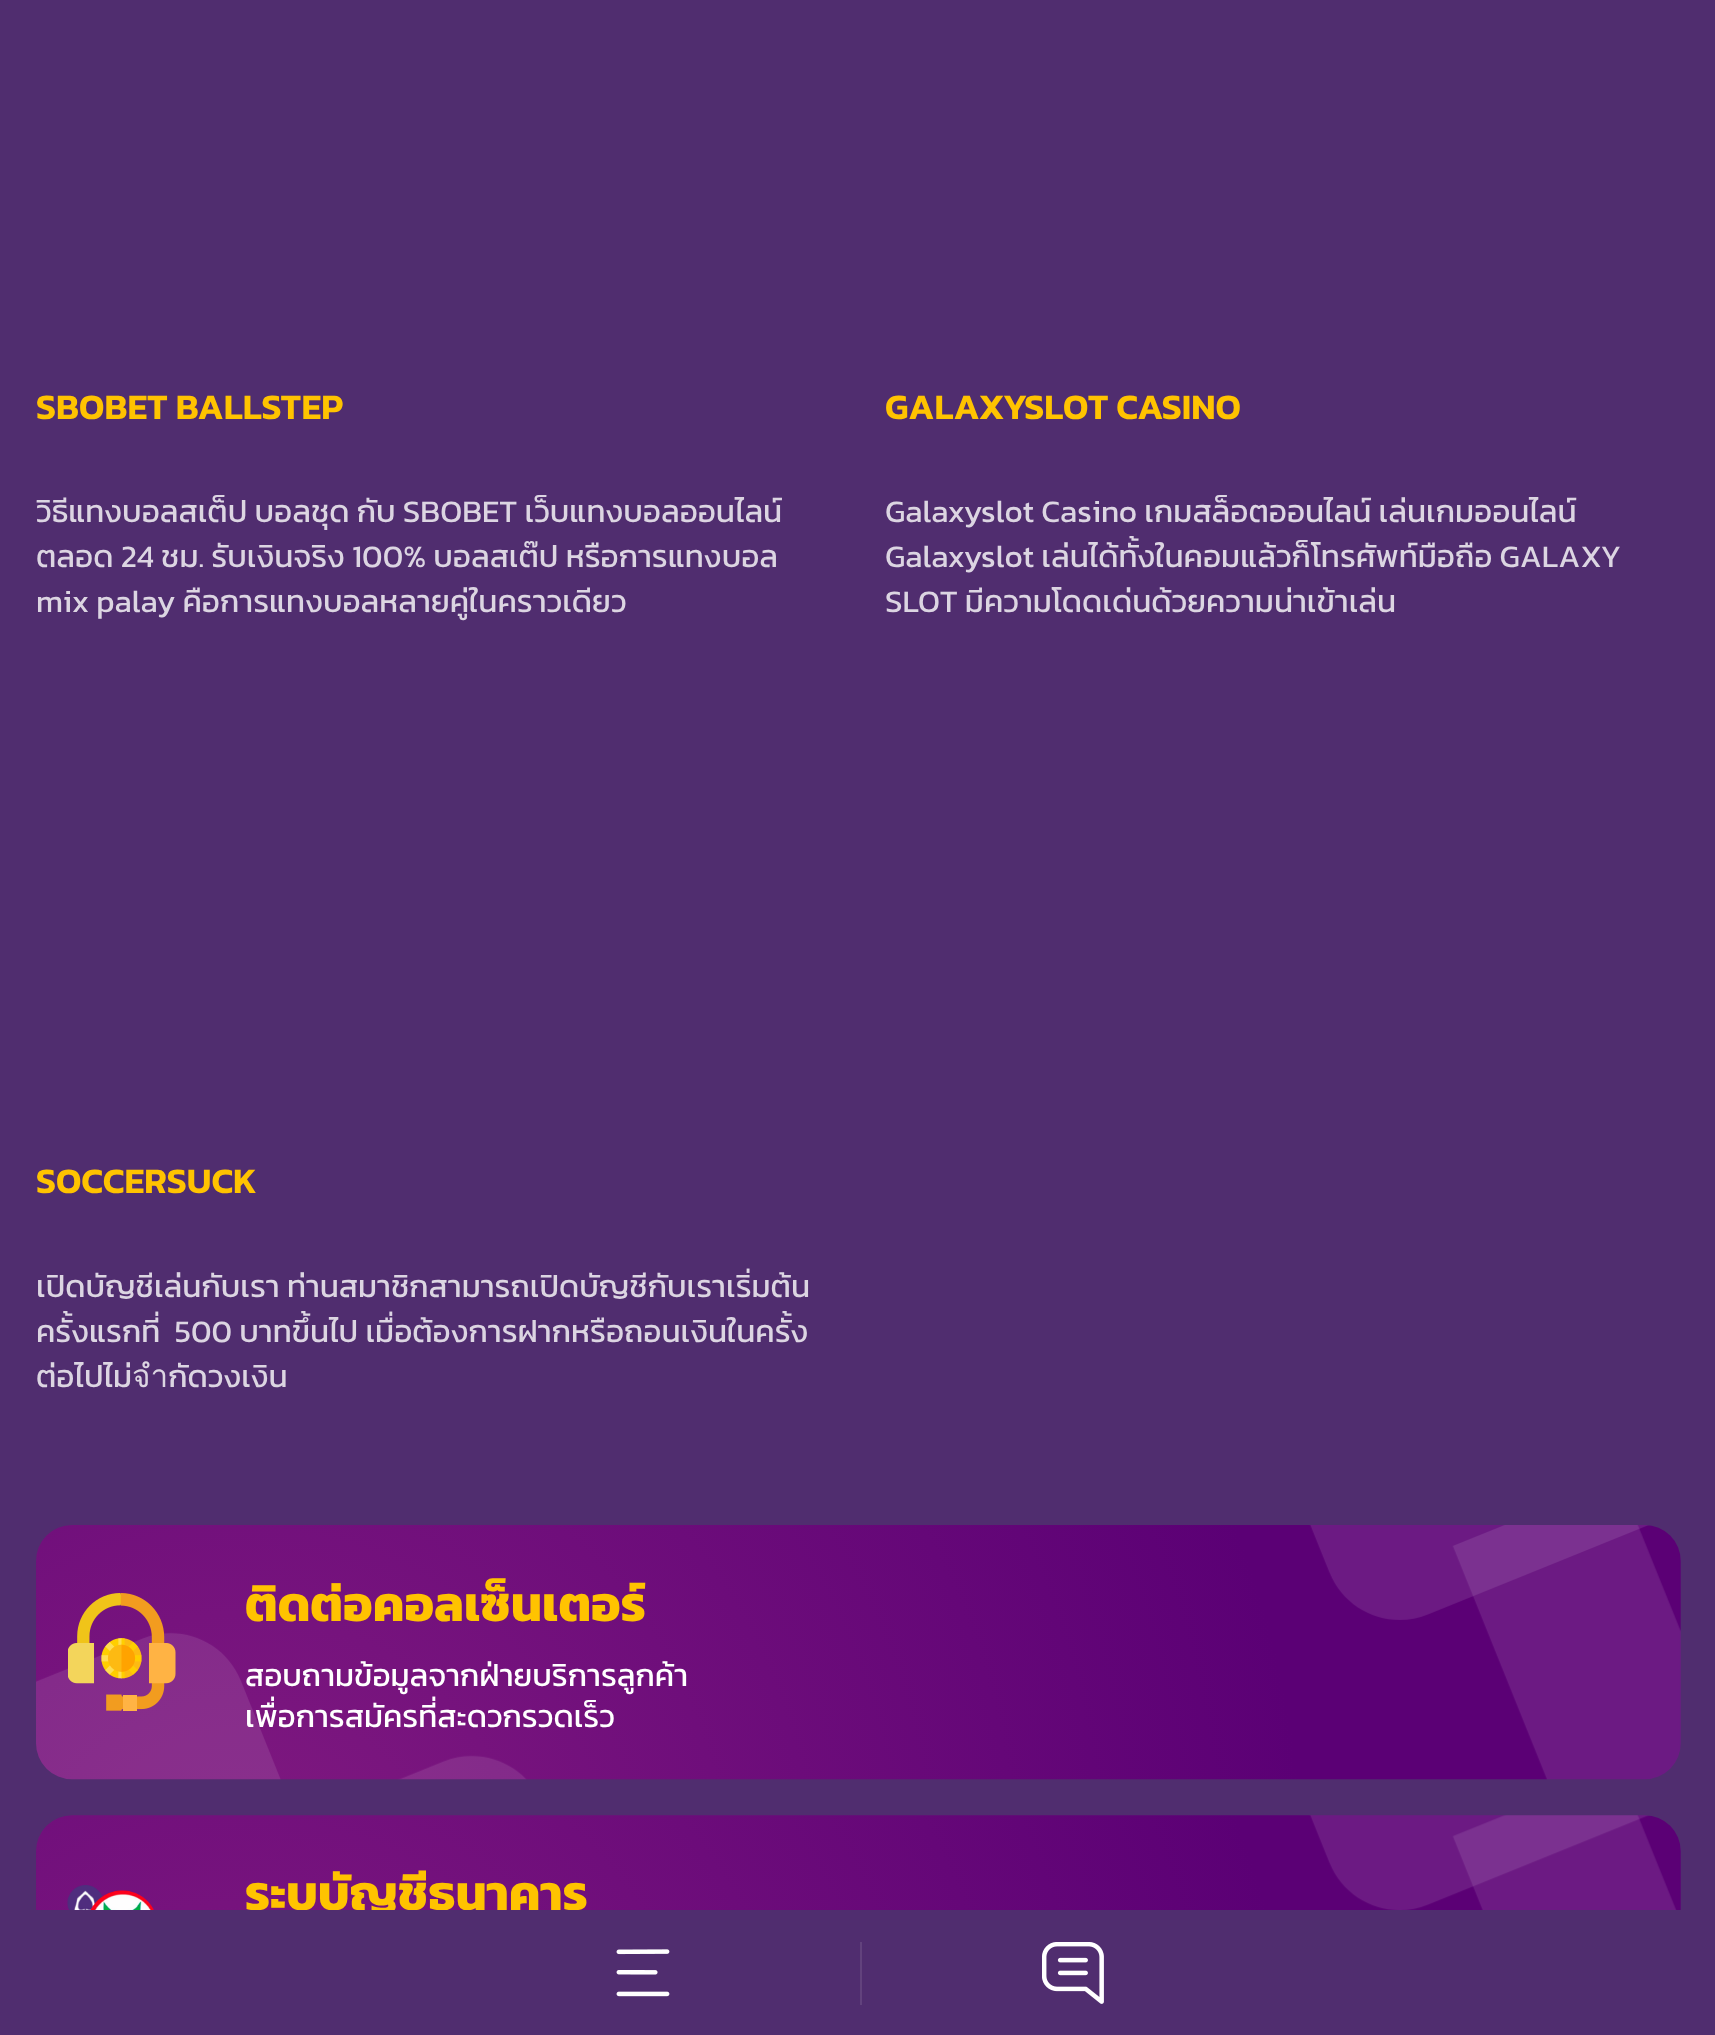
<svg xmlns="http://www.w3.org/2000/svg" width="1715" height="2035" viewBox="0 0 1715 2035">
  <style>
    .t1 { font: 600 36px Kanit; fill: #ffc300; }
    .t2 { font: 31.5px Kanit; fill: #dcd5e2; }
    .t3 { font: bold 49.5px Kanit; fill: #ffc300; }
    .t4 { font: 31.5px Kanit; fill: #fff; }
  </style>
  <rect width="100%" height="100%" fill="#502d6f"/>
  <text x="36" y="419" class="t1">SBOBET BALLSTEP</text>
  <text x="36" y="522" class="t2">วิธีแทงบอลสเต็ป บอลชุด กับ SBOBET เว็บแทงบอลออนไลน์</text>
  <text x="36" y="567" class="t2">ตลอด 24 ชม. รับเงินจริง 100% บอลสเต๊ป หรือการแทงบอล</text>
  <text x="36" y="612" class="t2">mix palay คือการแทงบอลหลายคู่ในคราวเดียว</text>
  <text x="885" y="419" class="t1">GALAXYSLOT CASINO</text>
  <text x="885" y="522" class="t2">Galaxyslot Casino เกมสล็อตออนไลน์ เล่นเกมออนไลน์</text>
  <text x="885" y="567" class="t2">Galaxyslot เล่นได้ทั้งในคอมแล้วก็โทรศัพท์มือถือ GALAXY</text>
  <text x="885" y="612" class="t2">SLOT มีความโดดเด่นด้วยความน่าเข้าเล่น</text>
  <text x="36" y="1193" class="t1">SOCCERSUCK</text>
  <text x="36" y="1297" class="t2">เปิดบัญชีเล่นกับเรา ท่านสมาชิกสามารถเปิดบัญชีกับเราเริ่มต้น</text>
  <text x="36" y="1342" class="t2" xml:space="preserve">ครั้งแรกที่  500 บาทขึ้นไป เมื่อต้องการฝากหรือถอนเงินในครั้ง</text>
  <text x="36" y="1387" class="t2">ต่อไปไม่จำกัดวงเงิน</text>
  <image x="36" y="1525" width="1645" height="255" href="images/1.png"/>
  <image x="68" y="1593" width="108" height="118" href="images/2.png"/>
  <text x="245" y="1621" class="t3">ติดต่อคอลเซ็นเตอร์</text>
  <text x="245" y="1686" class="t4">สอบถามข้อมูลจากฝ่ายบริการลูกค้า</text>
  <text x="245" y="1727" class="t4">เพื่อการสมัครที่สะดวกรวดเร็ว</text>
  <image x="36" y="1815" width="1645" height="95" href="images/3.png"/>
  <image x="67" y="1885" width="87" height="25" href="images/4.png"/>
  <text x="245" y="1910" class="t3">ระบุบัญชีธนาคาร</text>
  <rect x="251" y="1910" width="329" height="13" fill="#502d6f"/>
  <image x="616" y="1949" width="54" height="48" href="images/5.png"/>
  <rect x="860" y="1942" width="2" height="63" fill="#62427d"/>
  <image x="1042" y="1942" width="62" height="62" href="images/6.png"/>
</svg>
